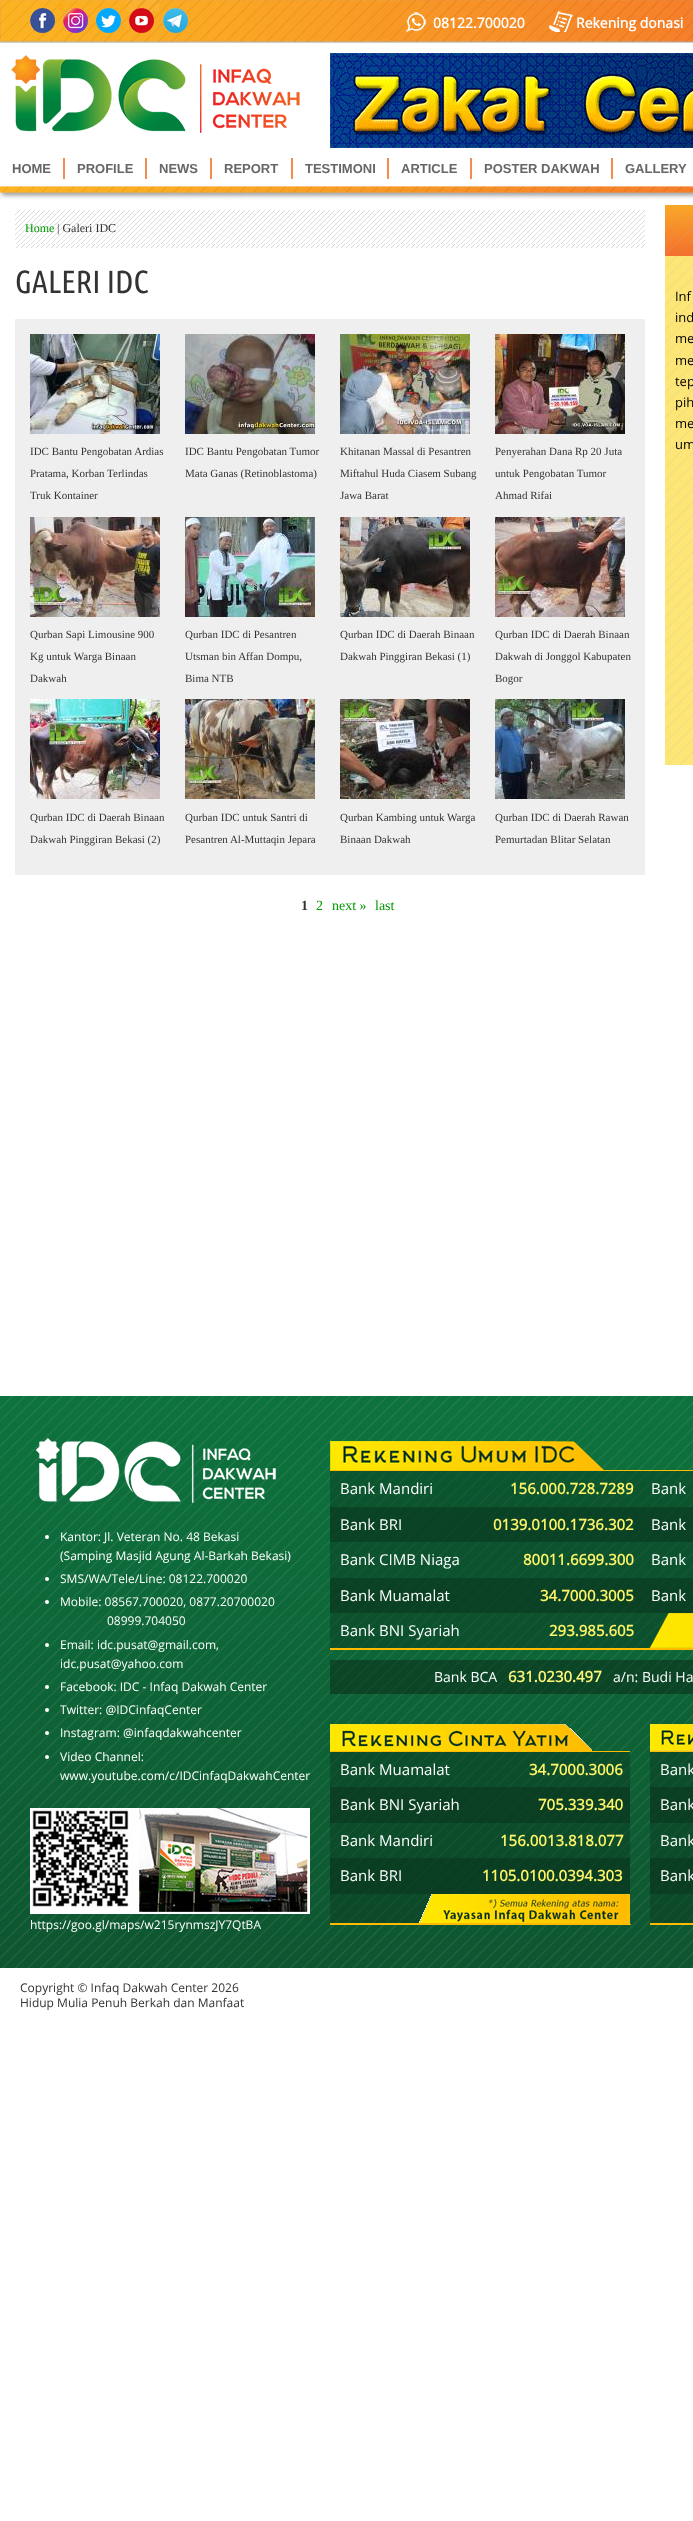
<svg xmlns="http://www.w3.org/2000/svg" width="693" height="2521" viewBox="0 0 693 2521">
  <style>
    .t1 { font: bold 14px Open Sans; fill: #fff; }
    .t2 { font: bold 13px Liberation Sans; fill: #666; }
    .t3 { font: 12px Liberation Serif; fill: #090; }
    .t4 { font: 12px Liberation Serif; fill: #333; }
    .t5 { font: 32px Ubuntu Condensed; fill: #333; }
    .t6 { font: 11px Liberation Serif; fill: #333; }
    .t7 { font: bold 14px Liberation Serif; fill: #333; }
    .t8 { font: 14px Liberation Serif; fill: #090; }
    .t9 { font: 13px Open Sans; fill: #000; }
    .t10 { font: 12px Open Sans; fill: #fff; }
    .t11 { font: 15px Open Sans; fill: #fff; }
    .t12 { font: bold 15px Open Sans; fill: #fef568; }
    .t13 { font: 14px Open Sans; fill: #fff; }
    .t14 { font: bold 15px Open Sans; fill: #fff77b; }
    .t15 { font: 12px Open Sans; fill: #333; }
  </style>
  <rect width="100%" height="100%" fill="#fff"/>
  <image x="0" y="186" width="693" height="14" href="images/1.png"/>
  <image x="0" y="0" width="693" height="43" href="images/2.png"/>
  <image x="30" y="8" width="25" height="25" href="images/3.png"/>
  <image x="63" y="8" width="25" height="25" href="images/4.png"/>
  <image x="96" y="8" width="25" height="25" href="images/5.png"/>
  <image x="129" y="8" width="25" height="25" href="images/6.png"/>
  <image x="163" y="8" width="25" height="25" href="images/7.png"/>
  <image x="406" y="12" width="20" height="20" href="images/8.png"/>
  <text x="433" y="28" class="t1">08122.700020</text>
  <image x="549" y="11" width="24" height="21" href="images/9.png"/>
  <text x="576" y="28" class="t1">Rekening donasi</text>
  <image x="11" y="55" width="289" height="78" href="images/10.png"/>
  <image x="330" y="53" width="363" height="95" href="images/11.png"/>
  <rect x="63" y="158" width="2" height="21" fill="#f58b4f"/>
  <text x="12" y="173" class="t2">HOME</text>
  <rect x="145" y="158" width="2" height="21" fill="#f58b4f"/>
  <text x="77" y="173" class="t2">PROFILE</text>
  <rect x="210" y="158" width="2" height="21" fill="#f58b4f"/>
  <text x="159" y="173" class="t2">NEWS</text>
  <rect x="291" y="158" width="2" height="21" fill="#f58b4f"/>
  <text x="224" y="173" class="t2">REPORT</text>
  <rect x="387" y="158" width="2" height="21" fill="#f58b4f"/>
  <text x="305" y="173" class="t2">TESTIMONI</text>
  <rect x="470" y="158" width="2" height="21" fill="#f58b4f"/>
  <text x="401" y="173" class="t2">ARTICLE</text>
  <rect x="611" y="158" width="2" height="21" fill="#f58b4f"/>
  <text x="484" y="173" class="t2">POSTER DAKWAH</text>
  <text x="625" y="173" class="t2">GALLERY</text>
  <image x="15" y="210" width="630" height="38" href="images/12.png"/>
  <text x="25" y="232" class="t3">Home</text>
  <text x="57" y="232" class="t4">| Galeri IDC</text>
  <text x="15" y="293" class="t5">GALERI IDC</text>
  <rect x="15" y="319" width="630" height="556" fill="#efefef"/>
  <image x="30" y="334" width="130" height="100" href="images/13.png"/>
  <text x="30" y="455" class="t6">IDC Bantu Pengobatan Ardias</text>
  <text x="30" y="477" class="t6">Pratama, Korban Terlindas</text>
  <text x="30" y="499" class="t6">Truk Kontainer</text>
  <image x="185" y="334" width="130" height="100" href="images/14.png"/>
  <text x="185" y="455" class="t6">IDC Bantu Pengobatan Tumor</text>
  <text x="185" y="477" class="t6">Mata Ganas (Retinoblastoma)</text>
  <image x="340" y="334" width="130" height="100" href="images/15.png"/>
  <text x="340" y="455" class="t6">Khitanan Massal di Pesantren</text>
  <text x="340" y="477" class="t6">Miftahul Huda Ciasem Subang</text>
  <text x="340" y="499" class="t6">Jawa Barat</text>
  <image x="495" y="334" width="130" height="100" href="images/16.png"/>
  <text x="495" y="455" class="t6">Penyerahan Dana Rp 20 Juta</text>
  <text x="495" y="477" class="t6">untuk Pengobatan Tumor</text>
  <text x="495" y="499" class="t6">Ahmad Rifai</text>
  <image x="30" y="517" width="130" height="100" href="images/17.png"/>
  <text x="30" y="638" class="t6">Qurban Sapi Limousine 900</text>
  <text x="30" y="660" class="t6">Kg untuk Warga Binaan</text>
  <text x="30" y="682" class="t6">Dakwah</text>
  <image x="185" y="517" width="130" height="100" href="images/18.png"/>
  <text x="185" y="638" class="t6">Qurban IDC di Pesantren</text>
  <text x="185" y="660" class="t6">Utsman bin Affan Dompu,</text>
  <text x="185" y="682" class="t6">Bima NTB</text>
  <image x="340" y="517" width="130" height="100" href="images/19.png"/>
  <text x="340" y="638" class="t6">Qurban IDC di Daerah Binaan</text>
  <text x="340" y="660" class="t6">Dakwah Pinggiran Bekasi (1)</text>
  <image x="495" y="517" width="130" height="100" href="images/20.png"/>
  <text x="495" y="638" class="t6">Qurban IDC di Daerah Binaan</text>
  <text x="495" y="660" class="t6">Dakwah di Jonggol Kabupaten</text>
  <text x="495" y="682" class="t6">Bogor</text>
  <image x="30" y="699" width="130" height="100" href="images/21.png"/>
  <text x="30" y="821" class="t6">Qurban IDC di Daerah Binaan</text>
  <text x="30" y="843" class="t6">Dakwah Pinggiran Bekasi (2)</text>
  <image x="185" y="699" width="130" height="100" href="images/22.png"/>
  <text x="185" y="821" class="t6">Qurban IDC untuk Santri di</text>
  <text x="185" y="843" class="t6">Pesantren Al-Muttaqin Jepara</text>
  <image x="340" y="699" width="130" height="100" href="images/23.png"/>
  <text x="340" y="821" class="t6">Qurban Kambing untuk Warga</text>
  <text x="340" y="843" class="t6">Binaan Dakwah</text>
  <image x="495" y="699" width="130" height="100" href="images/24.png"/>
  <text x="495" y="821" class="t6">Qurban IDC di Daerah Rawan</text>
  <text x="495" y="843" class="t6">Pemurtadan Blitar Selatan</text>
  <text x="301" y="910" class="t7">1</text>
  <text x="316" y="910" class="t8">2</text>
  <text x="332" y="910" class="t8">next »</text>
  <text x="375" y="910" class="t8">last</text>
  <rect x="665" y="256" width="28" height="509" fill="#fde576"/>
  <image x="665" y="256" width="28" height="509" href="images/25.png"/>
  <image x="665" y="205" width="28" height="51" href="images/26.png"/>
  <text x="675" y="301" class="t9">Inf</text>
  <text x="675" y="322" class="t9">ind</text>
  <text x="675" y="343" class="t9">me</text>
  <text x="675" y="365" class="t9">me</text>
  <text x="675" y="386" class="t9">tep</text>
  <text x="675" y="407" class="t9">pih</text>
  <text x="675" y="428" class="t9">me</text>
  <text x="675" y="449" class="t9">um</text>
  <image x="0" y="1396" width="693" height="572" href="images/27.png"/>
  <image x="36" y="1438" width="240" height="65" href="images/28.png"/>
  <circle cx="47" cy="1537" r="2" fill="#fff"/>
  <text x="60" y="1541" class="t10">Kantor: Jl. Veteran No. 48 Bekasi</text>
  <text x="60" y="1560" class="t10">(Samping Masjid Agung Al-Barkah Bekasi)</text>
  <circle cx="47" cy="1579" r="2" fill="#fff"/>
  <text x="60" y="1583" class="t10">SMS/WA/Tele/Line: 08122.700020</text>
  <circle cx="47" cy="1602" r="2" fill="#fff"/>
  <text x="60" y="1606" class="t10">Mobile: 08567.700020, 0877.20700020</text>
  <text x="107" y="1625" class="t10">08999.704050</text>
  <circle cx="47" cy="1645" r="2" fill="#fff"/>
  <text x="60" y="1649" class="t10">Email: idc.pusat@gmail.com,</text>
  <text x="60" y="1668" class="t10">idc.pusat@yahoo.com</text>
  <circle cx="47" cy="1687" r="2" fill="#fff"/>
  <text x="60" y="1691" class="t10">Facebook: IDC - Infaq Dakwah Center</text>
  <circle cx="47" cy="1710" r="2" fill="#fff"/>
  <text x="60" y="1714" class="t10">Twitter: @IDCinfaqCenter</text>
  <circle cx="47" cy="1733" r="2" fill="#fff"/>
  <text x="60" y="1737" class="t10">Instagram: @infaqdakwahcenter</text>
  <circle cx="47" cy="1757" r="2" fill="#fff"/>
  <text x="60" y="1761" class="t10">Video Channel:</text>
  <text x="60" y="1780" class="t10">www.youtube.com/c/IDCinfaqDakwahCenter</text>
  <image x="30" y="1808" width="280" height="106" href="images/29.png"/>
  <text x="30" y="1929" class="t10">https://goo.gl/maps/w215rynmszJY7QtBA</text>
  <image x="330" y="1441" width="275" height="29" href="images/30.png"/>
  <rect x="330" y="1470" width="363" height="1" fill="#fb0"/>
  <rect x="330" y="1471" width="311" height="36" fill="#0a3c2180"/>
  <text x="340" y="1494" class="t11">Bank Mandiri</text>
  <text x="510" y="1494" class="t12">156.000.728.7289</text>
  <rect x="641" y="1471" width="52" height="36" fill="#0a3c2180"/>
  <text x="651" y="1494" class="t11">Bank</text>
  <rect x="330" y="1507" width="363" height="35" fill="#07261680"/>
  <rect x="330" y="1507" width="311" height="35" fill="#0a3c2180"/>
  <text x="340" y="1530" class="t11">Bank BRI</text>
  <text x="493" y="1530" class="t12">0139.0100.1736.302</text>
  <rect x="641" y="1507" width="52" height="35" fill="#0a3c2180"/>
  <text x="651" y="1530" class="t11">Bank</text>
  <rect x="330" y="1542" width="311" height="36" fill="#0a3c2180"/>
  <text x="340" y="1565" class="t11">Bank CIMB Niaga</text>
  <text x="523" y="1565" class="t12">80011.6699.300</text>
  <rect x="641" y="1542" width="52" height="36" fill="#0a3c2180"/>
  <text x="651" y="1565" class="t11">Bank</text>
  <rect x="330" y="1578" width="363" height="35" fill="#07261680"/>
  <rect x="330" y="1578" width="311" height="35" fill="#0a3c2180"/>
  <text x="340" y="1601" class="t11">Bank Muamalat</text>
  <text x="540" y="1601" class="t12">34.7000.3005</text>
  <rect x="641" y="1578" width="52" height="35" fill="#0a3c2180"/>
  <text x="651" y="1601" class="t11">Bank</text>
  <rect x="641" y="1613" width="52" height="35" fill="#0a3c2180"/>
  <image x="650" y="1613" width="43" height="35" href="images/31.png"/>
  <rect x="330" y="1649" width="363" height="1" fill="#fb0"/>
  <rect x="330" y="1613" width="311" height="35" fill="#0a3c2180"/>
  <rect x="330" y="1648" width="363" height="1" fill="#fb0"/>
  <text x="340" y="1636" class="t11">Bank BNI Syariah</text>
  <text x="549" y="1636" class="t12">293.985.605</text>
  <rect x="330" y="1660" width="363" height="34" fill="#07261680"/>
  <text x="434" y="1682" class="t13">Bank BCA</text>
  <text x="508" y="1682" class="t14">631.0230.497</text>
  <text x="613" y="1682" class="t13">a/n: Budi Ha</text>
  <image x="330" y="1724" width="262" height="27" href="images/32.png"/>
  <rect x="330" y="1751" width="300" height="1" fill="#fb0"/>
  <rect x="330" y="1752" width="300" height="35" fill="#0a3c2180"/>
  <text x="340" y="1775" class="t11">Bank Muamalat</text>
  <text x="529" y="1775" class="t12">34.7000.3006</text>
  <rect x="330" y="1787" width="300" height="36" fill="#07261680"/>
  <rect x="330" y="1787" width="300" height="36" fill="#0a3c2180"/>
  <text x="340" y="1810" class="t11">Bank BNI Syariah</text>
  <text x="538" y="1810" class="t12">705.339.340</text>
  <rect x="330" y="1823" width="300" height="35" fill="#0a3c2180"/>
  <text x="340" y="1846" class="t11">Bank Mandiri</text>
  <text x="500" y="1846" class="t12">156.0013.818.077</text>
  <rect x="330" y="1858" width="300" height="36" fill="#07261680"/>
  <rect x="330" y="1858" width="300" height="36" fill="#0a3c2180"/>
  <text x="340" y="1881" class="t11">Bank BRI</text>
  <text x="482" y="1881" class="t12">1105.0100.0394.303</text>
  <rect x="330" y="1894" width="101" height="29" fill="#0a3c2180"/>
  <image x="419" y="1894" width="211" height="29" href="images/33.png"/>
  <rect x="330" y="1923" width="300" height="1" fill="#fb0"/>
  <rect x="330" y="1924" width="301" height="1" fill="#fb0"/>
  <image x="650" y="1724" width="43" height="27" href="images/34.png"/>
  <rect x="650" y="1751" width="43" height="1" fill="#fb0"/>
  <rect x="650" y="1752" width="43" height="35" fill="#0a3c2180"/>
  <text x="660" y="1775" class="t11">Bank</text>
  <rect x="650" y="1787" width="43" height="36" fill="#07261680"/>
  <rect x="650" y="1787" width="43" height="36" fill="#0a3c2180"/>
  <text x="660" y="1810" class="t11">Bank</text>
  <rect x="650" y="1823" width="43" height="35" fill="#0a3c2180"/>
  <text x="660" y="1846" class="t11">Bank</text>
  <rect x="650" y="1858" width="43" height="36" fill="#07261680"/>
  <rect x="650" y="1858" width="43" height="36" fill="#0a3c2180"/>
  <text x="660" y="1881" class="t11">Bank</text>
  <rect x="650" y="1894" width="43" height="29" fill="#0a3c2180"/>
  <rect x="650" y="1923" width="43" height="2" fill="#fb0"/>
  <text x="20" y="1992" class="t15">Copyright © Infaq Dakwah Center 2026</text>
  <text x="20" y="2007" class="t15">Hidup Mulia Penuh Berkah dan Manfaat</text>
</svg>
